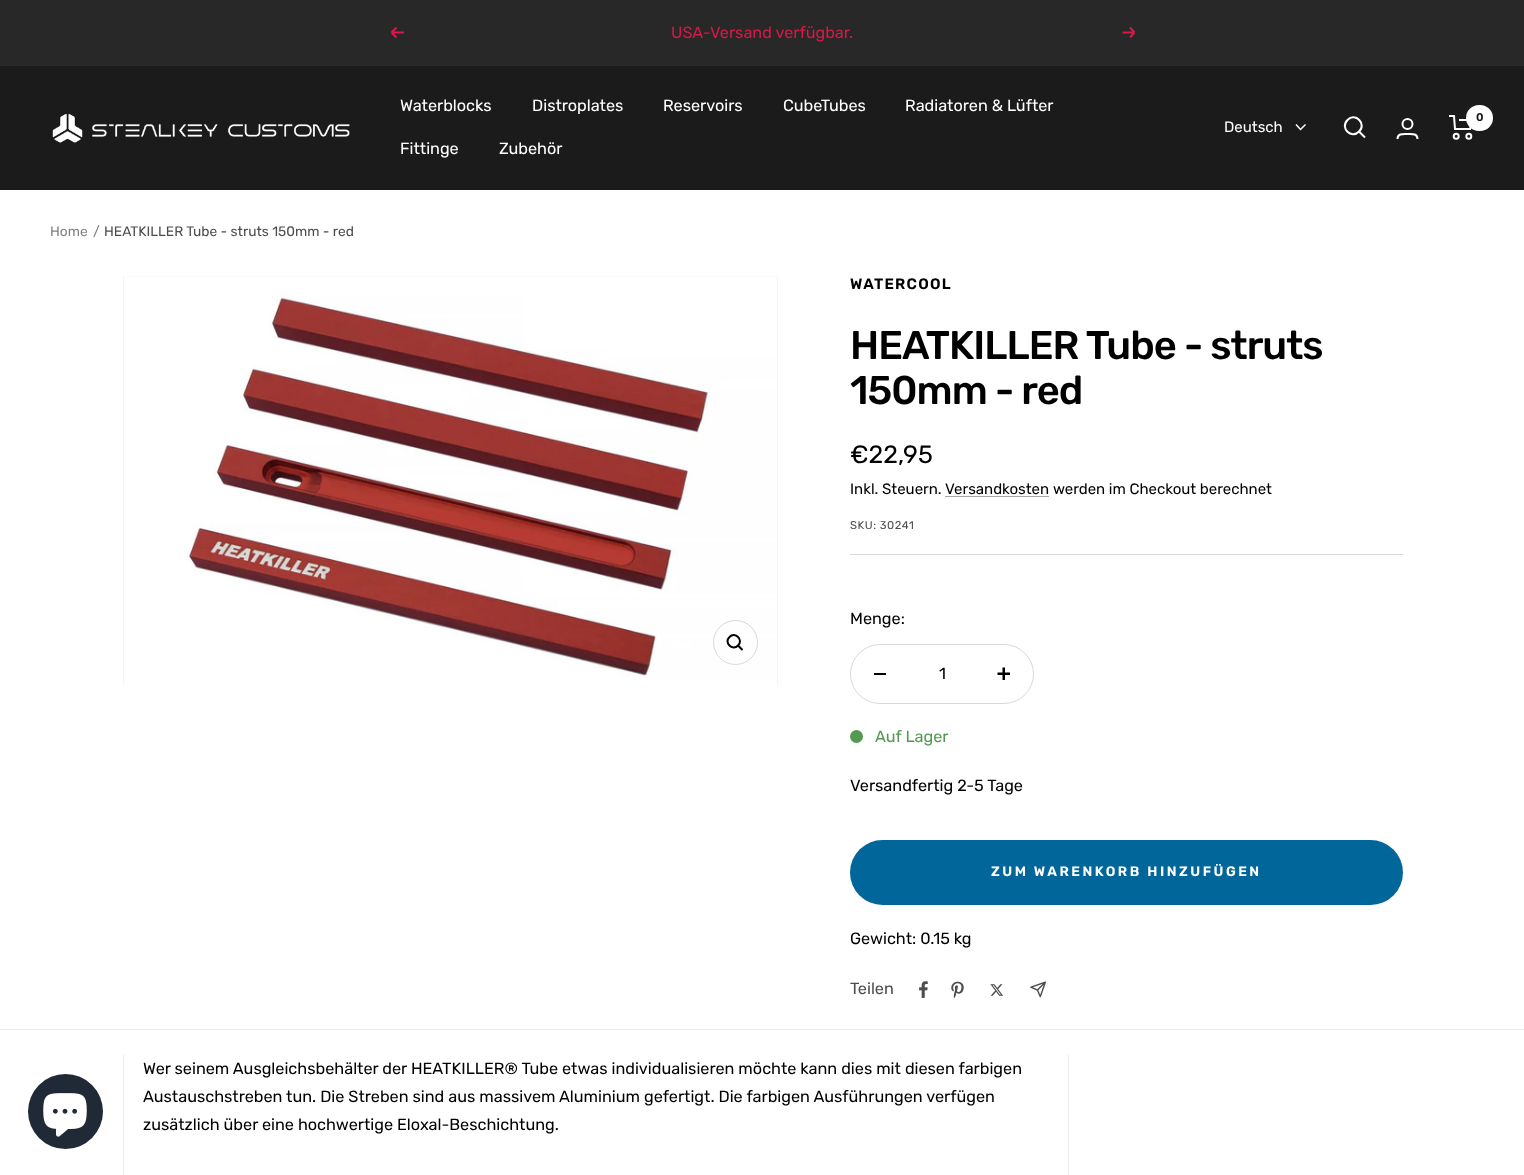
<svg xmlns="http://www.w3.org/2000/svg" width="1524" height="1175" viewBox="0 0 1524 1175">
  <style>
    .t1 { font: 16.25px Rubik; fill: #d81848; }
    .t2 { font: 16.25px Rubik; fill: #fff; }
    .t3 { font: 600 11.25px Rubik; fill: #1b1b1b; }
    .t4 { font: 15px Rubik; fill: #fff; }
    .t5 { font: 13.75px Rubik; fill: #828282; }
    .t6 { font: 13.75px Rubik; fill: #4d4d4d; }
    .t7 { font: 600 15px Rubik; letter-spacing: 1.25px; fill: #000; }
    .t8 { font: 500 40px Rubik; letter-spacing: -1px; fill: #000; }
    .t9 { font: 25px Rubik; fill: #000; }
    .t10 { font: 15px Rubik; fill: #000; }
    .t11 { font: 11.25px Rubik; letter-spacing: 0.5px; fill: #4d4d4d; }
    .t12 { font: 16.25px Rubik; fill: #000; }
    .t13 { font: 16.25px Rubik; fill: #539951; }
    .t14 { font: 600 13.75px Rubik; letter-spacing: 2.5px; fill: #fff; }
    .t15 { font: 16.25px Rubik; fill: #4d4d4d; }
  </style>
  <rect width="100%" height="100%" fill="#fff"/>
  <rect x="0" y="0" width="1524" height="66" fill="#282828"/>
  <path d="M404 32.5H391.5M391.5 32.5L396.5 37.5M391.5 32.5L396.5 27.5" fill="none" stroke="#d81848" stroke-width="2"/>
  <text x="671" y="38" class="t1">USA-Versand verfügbar.</text>
  <path d="M1122.5 32.5H1134.5M1134.5 32.5L1130 37.5M1134.5 32.5L1130 27.5" fill="none" stroke="#d81848" stroke-width="2"/>
  <rect x="0" y="66" width="1524" height="124" fill="#1b1b1b"/>
  <image x="52" y="113" width="298" height="30" href="images/1.png"/>
  <text x="400" y="111" class="t2">Waterblocks</text>
  <text x="532" y="111" class="t2">Distroplates</text>
  <text x="663" y="111" class="t2">Reservoirs</text>
  <text x="783" y="111" class="t2">CubeTubes</text>
  <text x="905" y="111" class="t2">Radiatoren &amp; Lüfter</text>
  <text x="400" y="154" class="t2">Fittinge</text>
  <text x="499" y="154" class="t2">Zubehör</text>
  <path d="M1359 131.5C1367 124 1355.5 112 1347.5 120C1339.5 128 1351.5 139.5 1359 131.5ZM1359 131.5L1365 137.5" fill="none" stroke="#fff" stroke-width="2"/>
  <circle cx="1407.5" cy="124" r="5" fill="none" stroke="#fff" stroke-width="2"/>
  <path d="M1397.5 139C1397.5 133 1403.5 134 1407.5 134C1411.5 134 1417.5 133 1417.5 139" fill="none" stroke="#fff" stroke-width="2"/>
  <path d="M1449 116H1454L1455 129H1470L1472.5 120H1459" fill="none" stroke="#fff" stroke-width="2"/>
  <circle cx="1456.2" cy="136.2" r="2.5" fill="none" stroke="#fff" stroke-width="2"/>
  <circle cx="1468.8" cy="136.2" r="2.5" fill="none" stroke="#fff" stroke-width="2"/>
  <rect x="1466" y="105" width="27" height="26" rx="13" fill="#fff"/>
  <text x="1476" y="121" class="t3">0</text>
  <text x="1224" y="132" class="t4">Deutsch</text>
  <path d="M1296 124.5L1300.5 129.5L1305.5 124.5" fill="none" stroke="#fff" stroke-width="1.5"/>
  <rect x="0" y="1029" width="1524" height="1" fill="#ededed"/>
  <text x="50" y="236" class="t5">Home</text>
  <text x="93" y="236" class="t5">/</text>
  <text x="104" y="236" class="t6">HEATKILLER Tube - struts 150mm - red</text>
  <rect x="123" y="276" width="655" height="409" fill="#f5f5f5"/>
  <image x="124" y="276" width="653" height="409" href="images/2.png"/>
  <circle cx="735.5" cy="642.5" r="22" fill="none" stroke="#d9d9d9"/>
  <path d="M738 645.5C744 640 735 631 729.5 637C723.5 642.5 732.5 651.5 738 645.5ZM738 645.5L742.5 650" fill="none" stroke="#000" stroke-width="2"/>
  <rect x="850" y="554" width="553" height="1" fill="#d9d9d9"/>
  <text x="850" y="289" class="t7">WATERCOOL</text>
  <text x="850" y="359" class="t8">HEATKILLER Tube - struts</text>
  <text x="850" y="404" class="t8">150mm - red</text>
  <text x="850" y="463" class="t9">€22,95</text>
  <text x="850" y="494" class="t10">Inkl. Steuern.</text>
  <text x="945" y="494" class="t10">Versandkosten</text>
  <rect x="945" y="496" width="104" height="1" fill="#a6a6a6"/>
  <text x="1053" y="494" class="t10">werden im Checkout berechnet</text>
  <text x="850" y="529" class="t11">SKU: 30241</text>
  <text x="850" y="624" class="t12">Menge:</text>
  <rect x="850.5" y="644.5" width="183" height="59" rx="29.5" fill="none" stroke="#d9d9d9"/>
  <rect x="874" y="673" width="12" height="2" fill="#000"/>
  <text x="939" y="679" class="t12">1</text>
  <image x="997" y="667" width="13" height="13" href="images/3.png"/>
  <circle cx="856.5" cy="736.5" r="6.5" fill="#539951"/>
  <text x="875" y="742" class="t13">Auf Lager</text>
  <text x="850" y="791" class="t12">Versandfertig 2-5 Tage</text>
  <rect x="850" y="840" width="553" height="65" rx="32.5" fill="#016699"/>
  <text x="991" y="876" class="t14">ZUM WARENKORB HINZUFÜGEN</text>
  <text x="850" y="944" class="t12">Gewicht: 0.15 kg</text>
  <text x="850" y="994" class="t15">Teilen</text>
  <image x="919" y="981" width="9" height="17" href="images/4.png"/>
  <image x="951" y="981" width="13" height="18" href="images/5.png"/>
  <image x="990" y="984" width="13" height="12" href="images/6.png"/>
  <image x="1030" y="981" width="16" height="17" href="images/7.png"/>
  <rect x="1068" y="1055" width="1" height="120" fill="#ededed"/>
  <rect x="123" y="1055" width="1" height="120" fill="#ededed"/>
  <text x="143" y="1074" class="t12">Wer seinem Ausgleichsbehälter der HEATKILLER® Tube etwas individualisieren möchte kann dies mit diesen farbigen</text>
  <text x="143" y="1102" class="t12">Austauschstreben tun. Die Streben sind aus massivem Aluminium gefertigt. Die farbigen Ausführungen verfügen</text>
  <text x="143" y="1130" class="t12">zusätzlich über eine hochwertige Eloxal-Beschichtung.</text>
  <circle cx="65.5" cy="1111.5" r="37.5" fill="#202a36"/>
  <image x="43" y="1093" width="44" height="44" href="images/8.png"/>
</svg>
